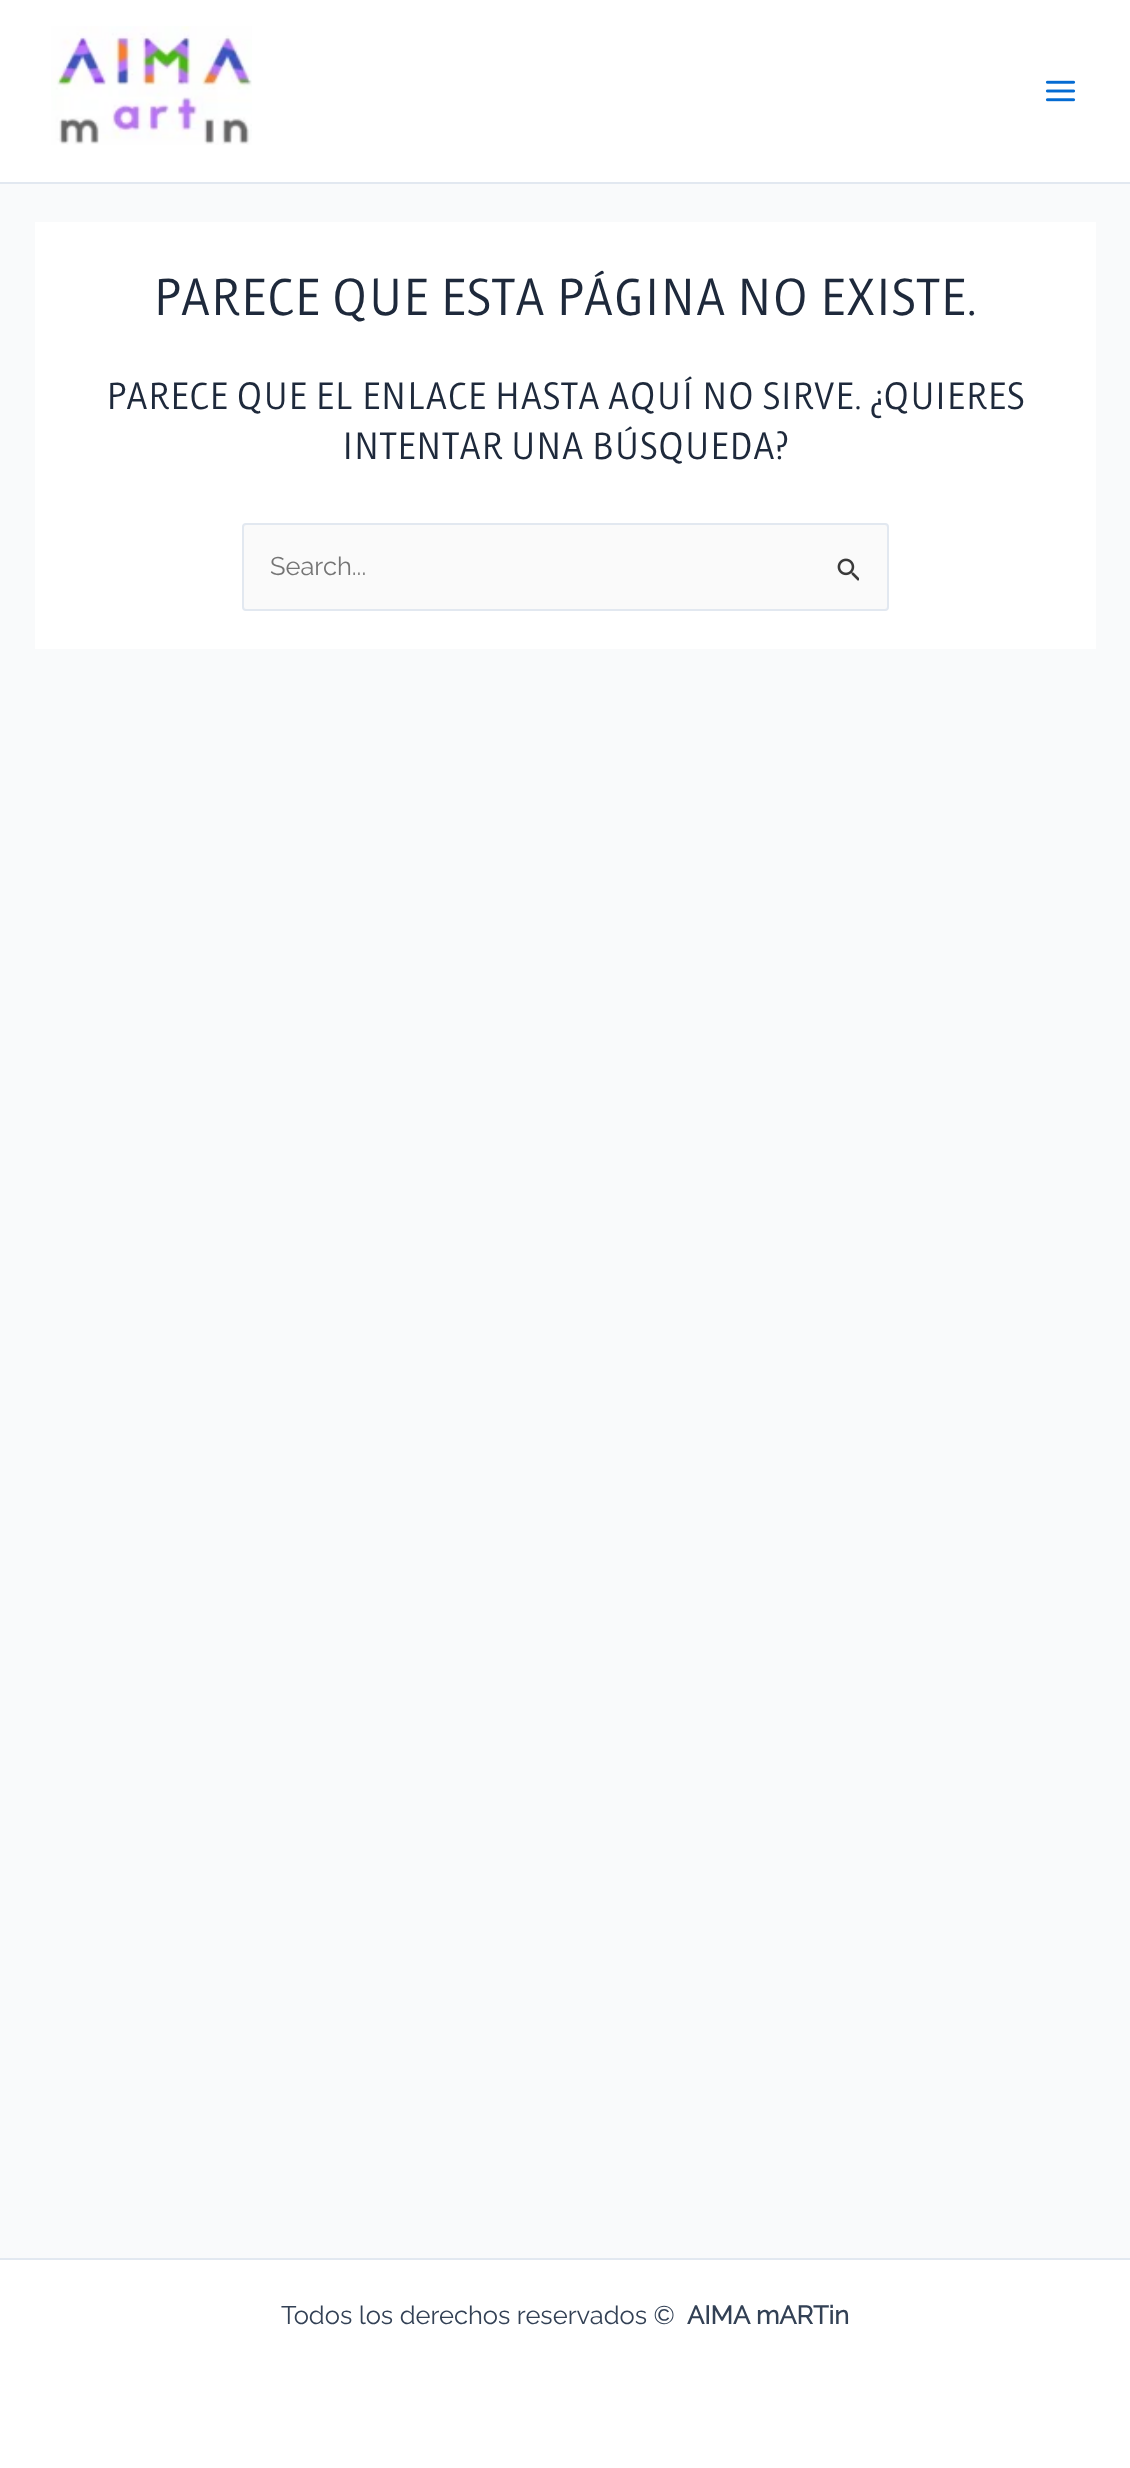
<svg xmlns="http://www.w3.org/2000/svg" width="1130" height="2468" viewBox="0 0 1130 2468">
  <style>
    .t1 { font: 52.5px Ruluko; fill: #1e293b; }
    .t2 { font: 38.3px Ruluko; fill: #1e293b; }
    .t3 { font: 100 25.5px Raleway; fill: #757575; }
    .t4 { font: 100 25.5px Raleway; fill: #334155; }
    .t5 { font: bold 25.5px Raleway; fill: #334155; }
  </style>
  <rect width="100%" height="100%" fill="#f9fafb"/>
  <rect x="0" y="0" width="1130" height="182" fill="#fff"/>
  <rect x="0" y="182" width="1130" height="2" fill="#e2e8f0"/>
  <image x="51" y="26" width="201" height="119" href="images/1.png"/>
  <image x="1045" y="80" width="31" height="22" href="images/2.png"/>
  <rect x="35" y="222" width="1061" height="427" fill="#fff"/>
  <text x="153" y="315" class="t1">PARECE QUE ESTA PÁGINA NO EXISTE.</text>
  <text x="106" y="409" class="t2">PARECE QUE EL ENLACE HASTA AQUÍ NO SIRVE. ¿QUIERES</text>
  <text x="342" y="459" class="t2">INTENTAR UNA BÚSQUEDA?</text>
  <rect x="243" y="524" width="645" height="86" rx="3" fill="#fafafa" stroke="#e2e8f0" stroke-width="2"/>
  <text x="270" y="575" class="t3">Search...</text>
  <image x="837" y="558" width="22" height="23" href="images/3.png"/>
  <rect x="0" y="2260" width="1130" height="208" fill="#fff"/>
  <rect x="0" y="2258" width="1130" height="2" fill="#e2e8f0"/>
  <text x="281" y="2324" class="t4">Todos los derechos reservados ©</text>
  <text x="687" y="2324" class="t5">AIMA mARTin</text>
</svg>
